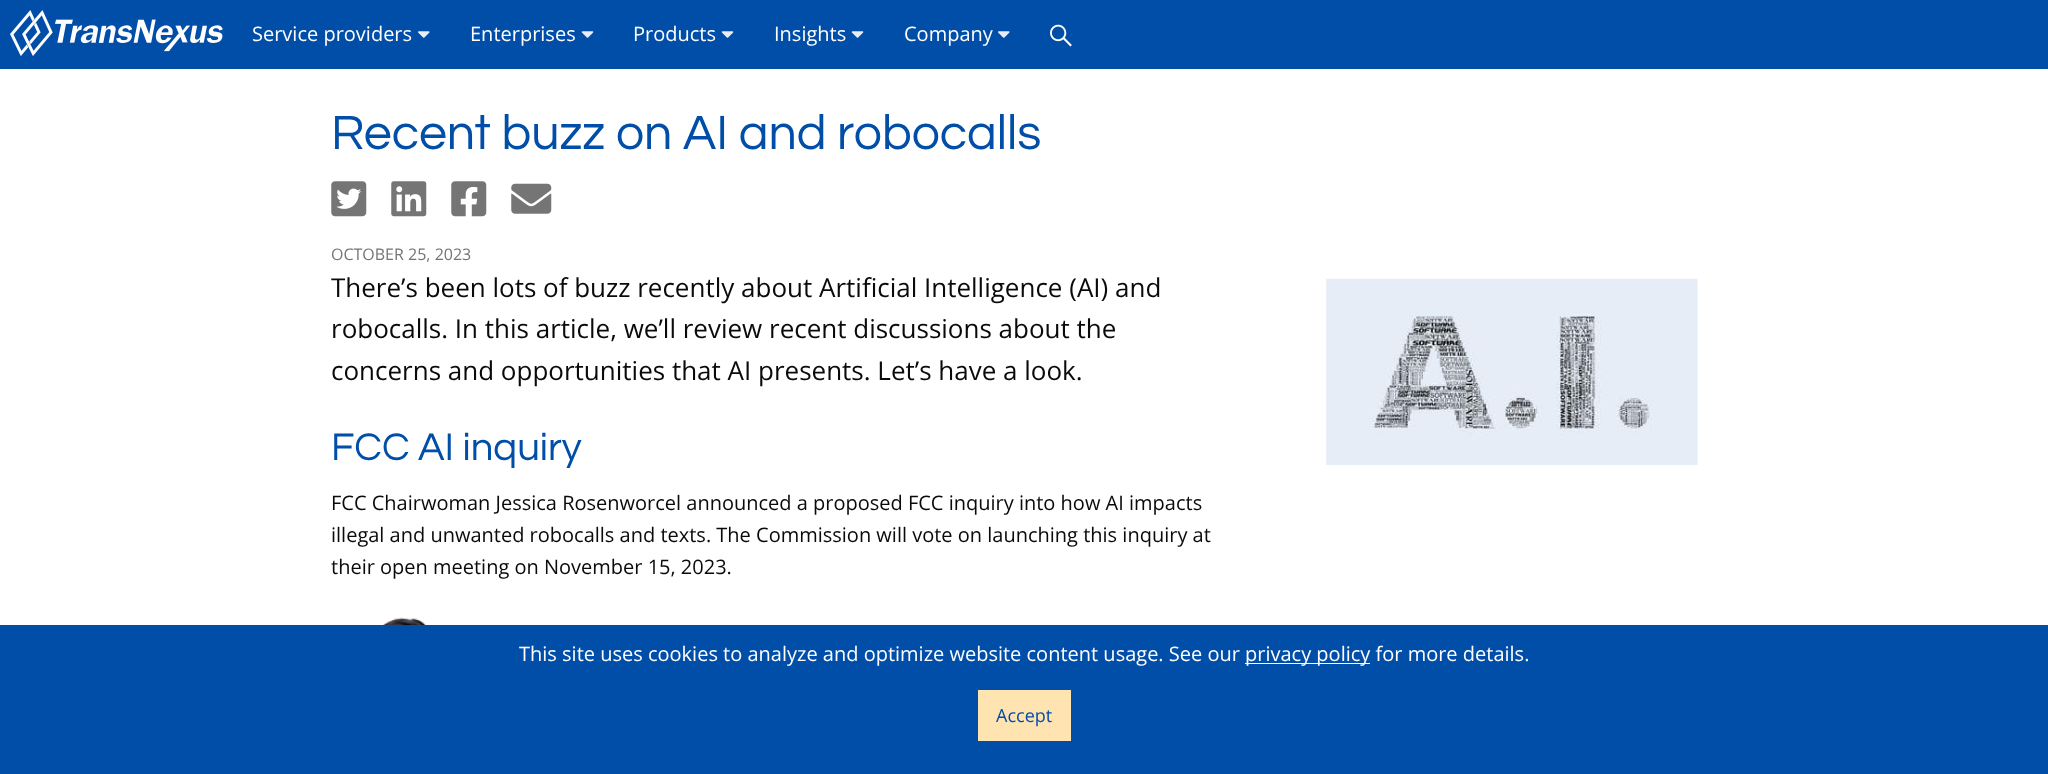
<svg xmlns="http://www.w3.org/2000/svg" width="2048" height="774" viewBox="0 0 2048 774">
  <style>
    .t1 { font: 20px Open Sans; fill: #fefefe; }
    .t2 { font: 50px Questrial; fill: #004ea8; }
    .t3 { font: 16px Open Sans; fill: #757575; }
    .t4 { font: 26px Open Sans; fill: #0a0a0a; }
    .t5 { font: 40px Questrial; fill: #004ea8; }
    .t6 { font: 20px Open Sans; fill: #0a0a0a; }
    .t7 { font: 18px Open Sans; fill: #004ea8; }
  </style>
  <rect width="100%" height="100%" fill="#fff"/>
  <rect x="0" y="0" width="2048" height="69" fill="#004ea8"/>
  <image x="10" y="10" width="213" height="46" href="images/1.png"/>
  <text x="252" y="41" class="t1">Service providers</text>
  <image x="418" y="31" width="12" height="7" href="images/2.png"/>
  <text x="470" y="41" class="t1">Enterprises</text>
  <image x="581" y="31" width="13" height="7" href="images/3.png"/>
  <text x="633" y="41" class="t1">Products</text>
  <image x="721" y="31" width="13" height="7" href="images/3.png"/>
  <text x="774" y="41" class="t1">Insights</text>
  <image x="851" y="31" width="13" height="7" href="images/3.png"/>
  <text x="904" y="41" class="t1">Company</text>
  <image x="998" y="31" width="12" height="7" href="images/2.png"/>
  <image x="1050" y="24" width="22" height="23" href="images/4.png"/>
  <text x="331" y="149" class="t2">Recent buzz on AI and robocalls</text>
  <image x="331" y="181" width="36" height="36" href="images/5.png"/>
  <image x="391" y="181" width="36" height="36" href="images/6.png"/>
  <image x="451" y="181" width="36" height="36" href="images/7.png"/>
  <image x="511" y="183" width="41" height="31" href="images/8.png"/>
  <text x="331" y="260" class="t3">OCTOBER 25, 2023</text>
  <text x="331" y="297" class="t4">There’s been lots of buzz recently about Artificial Intelligence (AI) and</text>
  <text x="331" y="338" class="t4">robocalls. In this article, we’ll review recent discussions about the</text>
  <text x="331" y="380" class="t4">concerns and opportunities that AI presents. Let’s have a look.</text>
  <text x="331" y="460" class="t5">FCC AI inquiry</text>
  <text x="331" y="510" class="t6">FCC Chairwoman Jessica Rosenworcel announced a proposed FCC inquiry into how AI impacts</text>
  <text x="331" y="542" class="t6">illegal and unwanted robocalls and texts. The Commission will vote on launching this inquiry at</text>
  <text x="331" y="574" class="t6">their open meeting on November 15, 2023.</text>
  <image x="383" y="617" width="43" height="8" href="images/9.png"/>
  <image x="1326" y="278" width="372" height="187" href="images/10.png"/>
  <rect x="0" y="625" width="2048" height="149" fill="#004ea8"/>
  <text x="519" y="661" class="t1">This site uses cookies to analyze and optimize website content usage. See our</text>
  <rect x="1245" y="663" width="125" height="1" fill="#fefefe"/>
  <text x="1245" y="661" class="t1">privacy policy for more details.</text>
  <rect x="978" y="690" width="93" height="51" fill="#ffe4b2"/>
  <text x="996" y="722" class="t7">Accept</text>
</svg>
